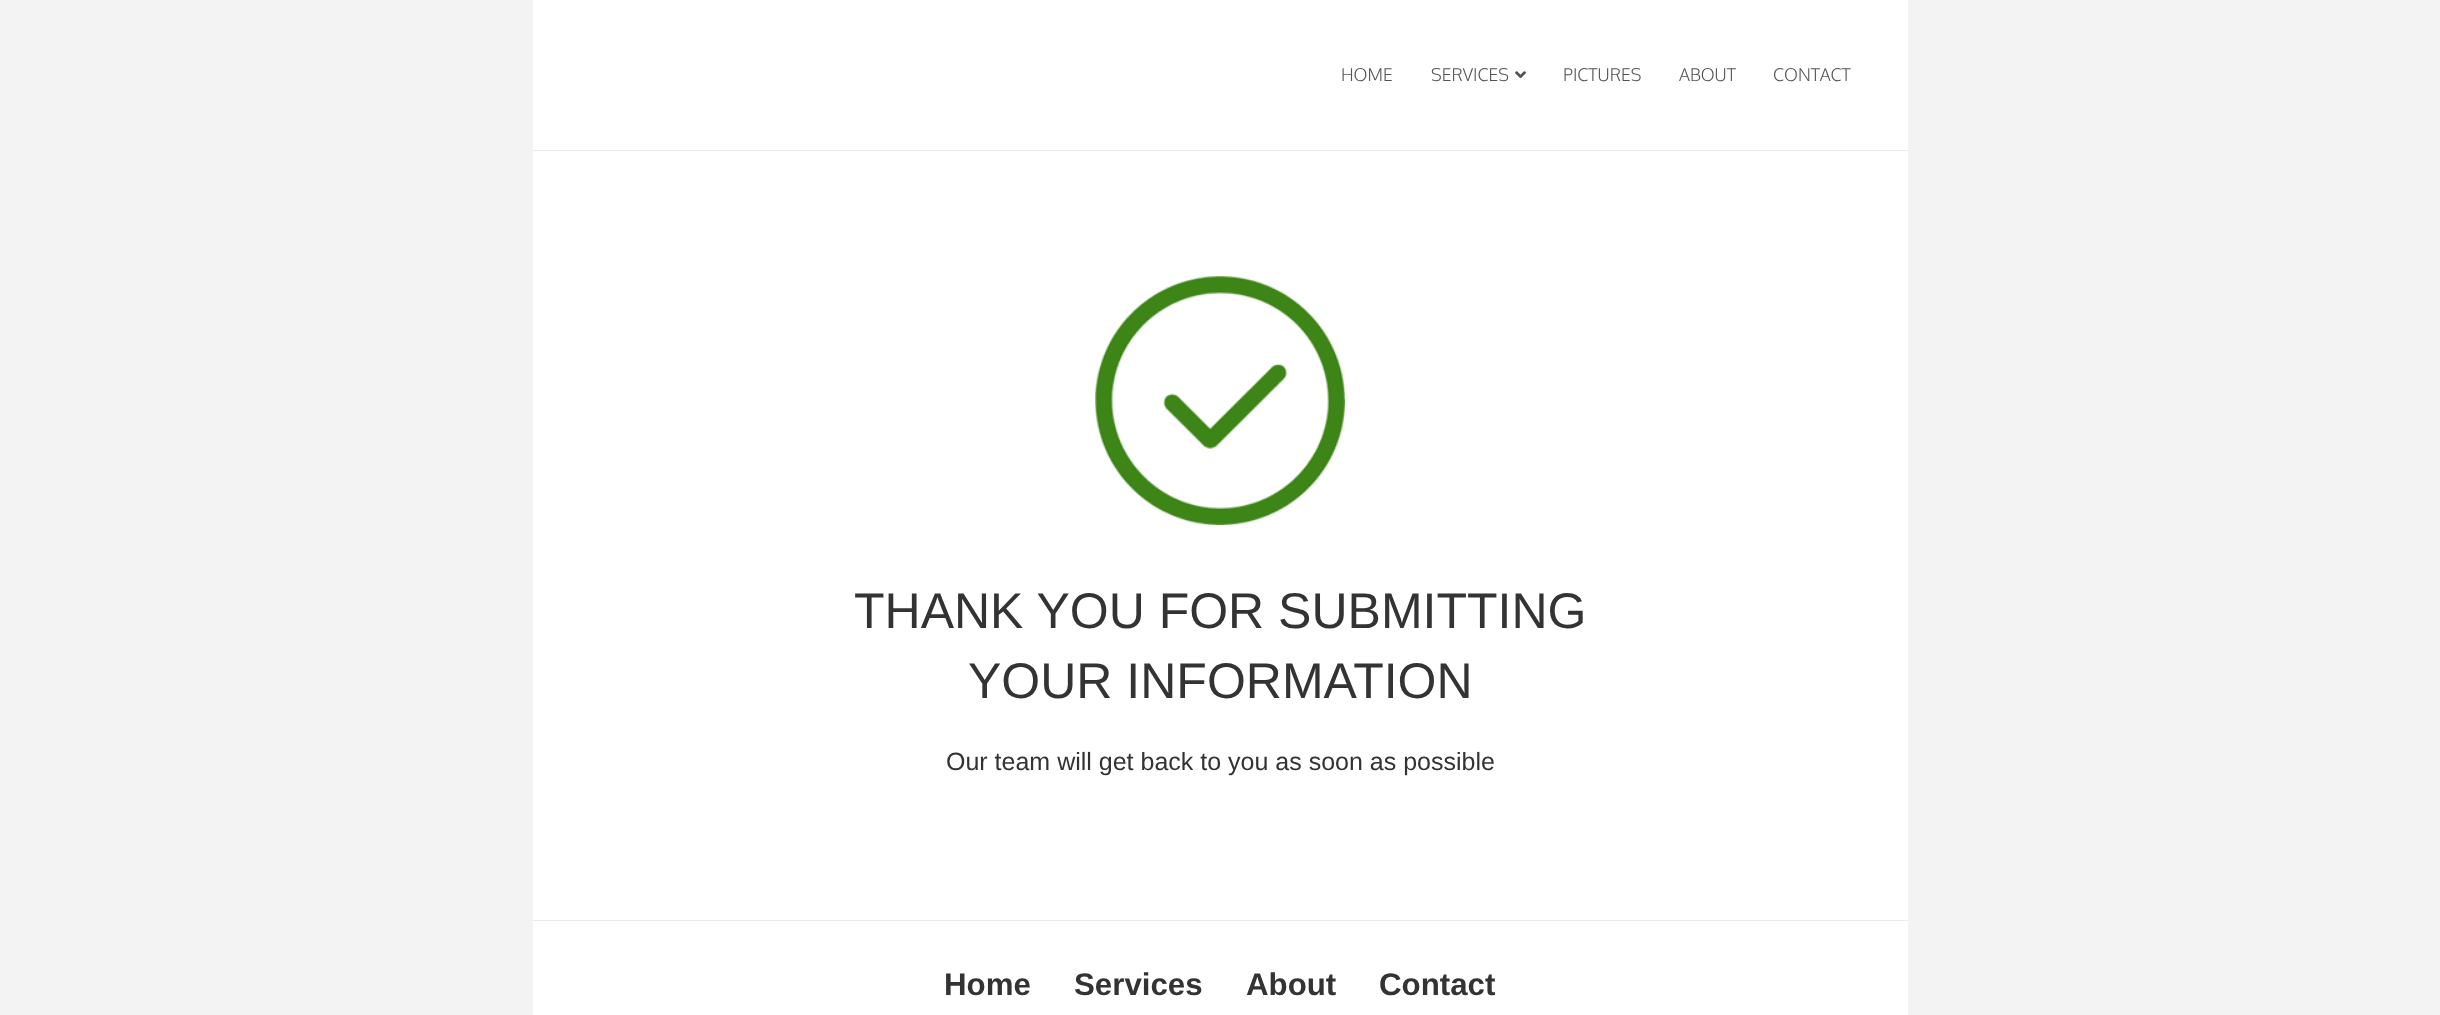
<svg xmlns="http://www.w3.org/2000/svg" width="2440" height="1015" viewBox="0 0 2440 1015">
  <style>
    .t1 { font: 300 17.5px Oxygen; fill: #525252; }
    .t2 { font: 50px Liberation Sans; fill: #333; }
    .t3 { font: 25px Liberation Sans; fill: #333; }
    .t4 { font: bold 31.25px Liberation Sans; fill: #333; }
  </style>
  <rect width="100%" height="100%" fill="#f3f3f3"/>
  <rect x="533" y="0" width="1375" height="150" fill="#fff"/>
  <text x="1341" y="81" class="t1">HOME</text>
  <text x="1431" y="81" class="t1">SERVICES</text>
  <image x="1515" y="71" width="11" height="8" href="images/1.png"/>
  <text x="1563" y="81" class="t1">PICTURES</text>
  <text x="1679" y="81" class="t1">ABOUT</text>
  <text x="1773" y="81" class="t1">CONTACT</text>
  <rect x="533" y="151" width="1375" height="769" fill="#fff"/>
  <rect x="533" y="150" width="1375" height="1" fill="#eaeaea"/>
  <rect x="533" y="920" width="1375" height="1" fill="#eaeaea"/>
  <image x="1095" y="276" width="250" height="249" href="images/2.png"/>
  <text x="854" y="628" class="t2">THANK YOU FOR SUBMITTING</text>
  <text x="968" y="698" class="t2">YOUR INFORMATION</text>
  <text x="946" y="770" class="t3">Our team will get back to you as soon as possible</text>
  <rect x="533" y="921" width="1375" height="94" fill="#fff"/>
  <text x="944" y="995" class="t4">Home</text>
  <text x="1074" y="995" class="t4">Services</text>
  <text x="1246" y="995" class="t4">About</text>
  <text x="1379" y="995" class="t4">Contact</text>
</svg>
